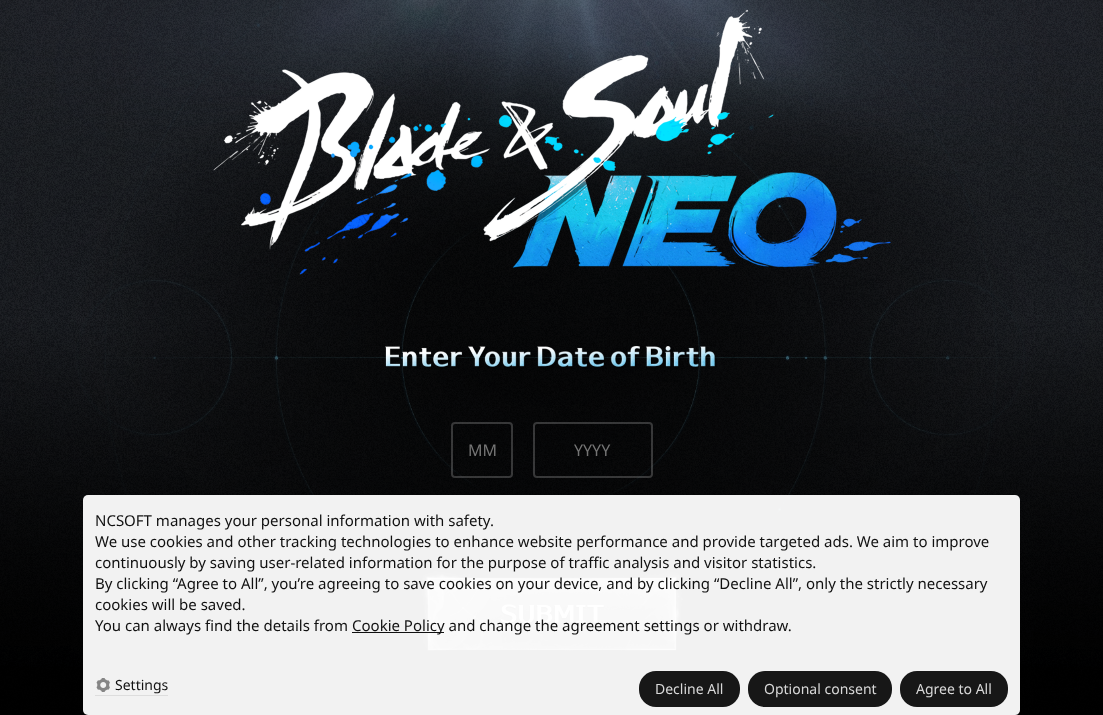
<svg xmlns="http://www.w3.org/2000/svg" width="1103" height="715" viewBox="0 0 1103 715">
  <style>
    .t1 { font: 16px Noto Sans; fill: #757575; }
    .t2 { font: 15px Noto Sans; fill: #111; }
    .t3 { font: 14px Noto Sans; fill: #111; }
    .t4 { font: 14px Noto Sans; fill: #d8d8d8; }
  </style>
  <rect width="100%" height="100%" fill="#fff"/>
  <image x="0" y="0" width="1103" height="715" href="images/1.png"/>
  <image x="213" y="9" width="678" height="266" href="images/2.png"/>
  <image x="385" y="346" width="332" height="23" href="images/3.png"/>
  <rect x="452" y="423" width="60" height="54" rx="3" fill="none" stroke="#ffffff33" stroke-width="2"/>
  <text x="468" y="456" class="t1">MM</text>
  <rect x="534" y="423" width="118" height="54" rx="3" fill="none" stroke="#ffffff33" stroke-width="2"/>
  <text x="574" y="456" class="t1">YYYY</text>
  <image x="418" y="569" width="275" height="88" href="images/4.png"/>
  <rect x="83" y="495" width="937" height="220" rx="5" fill="#fffffff2"/>
  <text x="95" y="526" class="t2">NCSOFT manages your personal information with safety.</text>
  <text x="95" y="547" class="t2">We use cookies and other tracking technologies to enhance website performance and provide targeted ads. We aim to improve</text>
  <text x="95" y="568" class="t2">continuously by saving user-related information for the purpose of traffic analysis and visitor statistics.</text>
  <text x="95" y="589" class="t2">By clicking “Agree to All”, you’re agreeing to save cookies on your device, and by clicking “Decline All”, only the strictly necessary</text>
  <text x="95" y="610" class="t2">cookies will be saved.</text>
  <text x="95" y="631" class="t2">You can always find the details from</text>
  <rect x="352" y="632" width="92" height="1" fill="#000000ed"/>
  <text x="352" y="631" class="t2">Cookie Policy and change the agreement settings or withdraw.</text>
  <rect x="95" y="695" width="73" height="1" fill="#ddd"/>
  <image x="96" y="678" width="14" height="14" href="images/5.png"/>
  <text x="115" y="690" class="t3">Settings</text>
  <rect x="639" y="671" width="101" height="36" rx="17" fill="#171717"/>
  <text x="655" y="694" class="t4">Decline All</text>
  <rect x="748" y="671" width="144" height="36" rx="17" fill="#171717"/>
  <text x="764" y="694" class="t4">Optional consent</text>
  <rect x="900" y="671" width="108" height="36" rx="17" fill="#171717"/>
  <text x="916" y="694" class="t4">Agree to All</text>
</svg>
